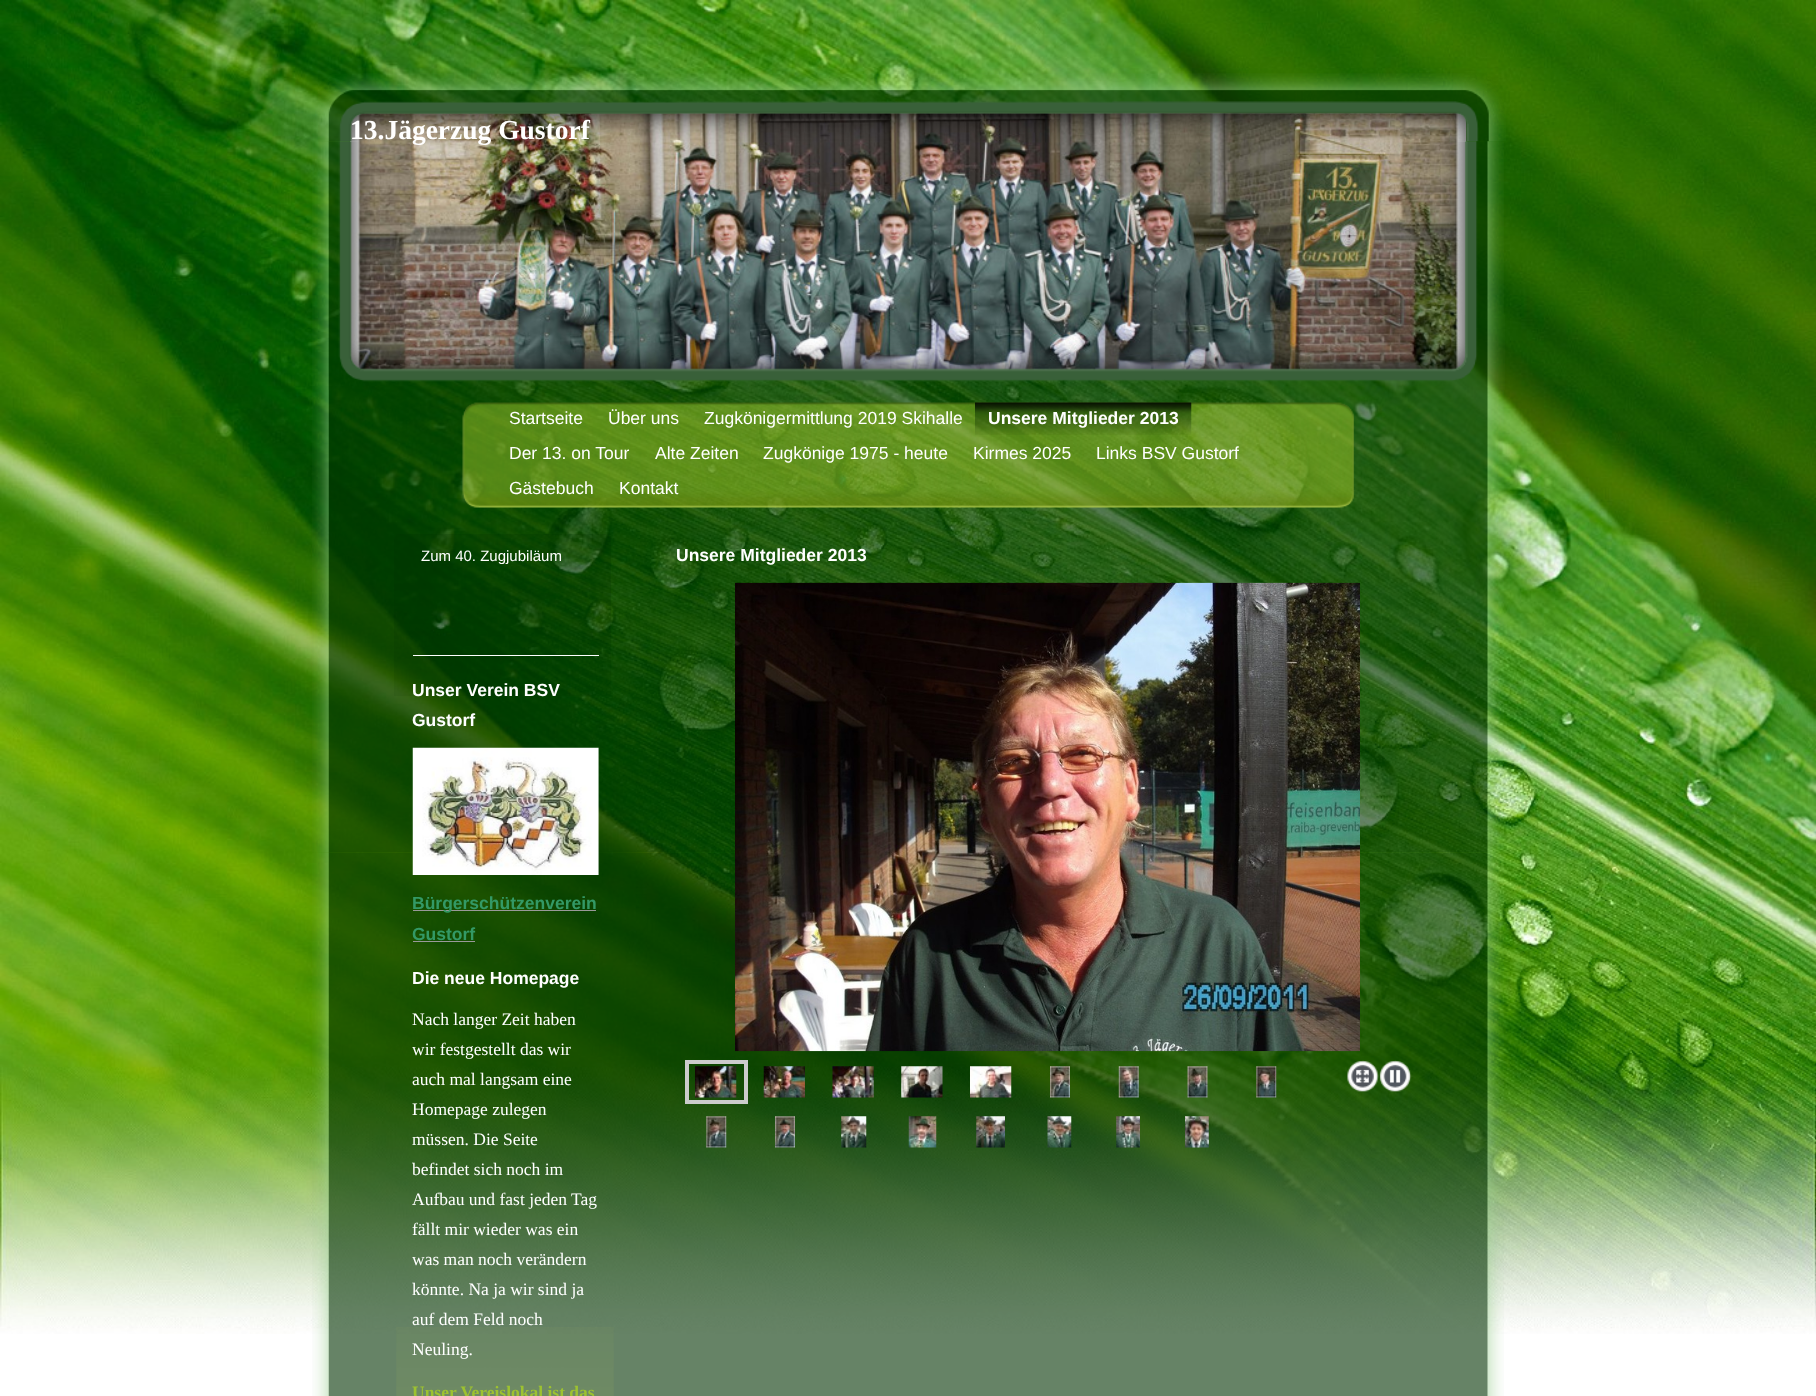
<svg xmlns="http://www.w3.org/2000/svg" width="1816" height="1396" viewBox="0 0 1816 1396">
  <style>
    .t1 { font: bold 27.5px Liberation Serif; fill: #fff; }
    .t2 { font: 17.5px Liberation Sans; fill: #fff; }
    .t3 { font: bold 17.5px Liberation Sans; fill: #fff; }
    .t4 { font: 15px Liberation Sans; fill: #fff; }
    .t5 { font: bold 17.5px Liberation Sans; fill: #396; }
    .t6 { font: 17.5px Liberation Serif; fill: #fff; }
    .t7 { font: bold 17.5px Liberation Serif; fill: #9dc230; }
  </style>
  <rect width="100%" height="100%" fill="#fff"/>
  <image x="0" y="0" width="1816" height="1334" href="images/1.png"/>
  <image x="350" y="112" width="1117" height="263" href="images/3.png"/>
  <image x="313" y="73" width="1193" height="69" href="images/2.png"/>
  <image x="312" y="141" width="63" height="174" href="images/4.png"/>
  <text x="350" y="139" class="t1">13.Jägerzug Gustorf</text>
  <image x="1442" y="141" width="62" height="174" href="images/5.png"/>
  <image x="312" y="315" width="1193" height="75" href="images/6.png"/>
  <image x="312" y="390" width="1192" height="463" href="images/7.png"/>
  <image x="462" y="402" width="892" height="18" href="images/8.png"/>
  <image x="462" y="420" width="893" height="88" href="images/9.png"/>
  <text x="509" y="424" class="t2">Startseite</text>
  <text x="608" y="424" class="t2">Über uns</text>
  <text x="704" y="424" class="t2">Zugkönigermittlung 2019 Skihalle</text>
  <image x="975" y="402" width="217" height="33" href="images/10.png"/>
  <text x="988" y="424" class="t3">Unsere Mitglieder 2013</text>
  <text x="509" y="459" class="t2">Der 13. on Tour</text>
  <text x="655" y="459" class="t2">Alte Zeiten</text>
  <text x="763" y="459" class="t2">Zugkönige 1975 - heute</text>
  <text x="973" y="459" class="t2">Kirmes 2025</text>
  <text x="1096" y="459" class="t2">Links BSV Gustorf</text>
  <text x="509" y="494" class="t2">Gästebuch</text>
  <text x="619" y="494" class="t2">Kontakt</text>
  <image x="312" y="852" width="1192" height="544" href="images/11.png"/>
  <image x="394" y="534" width="217" height="162" href="images/12.png"/>
  <text x="676" y="561" class="t3">Unsere Mitglieder 2013</text>
  <image x="735" y="582" width="625" height="470" href="images/13.png"/>
  <rect x="687" y="1062" width="59" height="40" fill="none" stroke="#ccc" stroke-width="4"/>
  <image x="695" y="1066" width="42" height="32" href="images/14.png"/>
  <image x="763" y="1066" width="42" height="32" href="images/15.png"/>
  <image x="832" y="1066" width="42" height="32" href="images/16.png"/>
  <image x="901" y="1066" width="42" height="32" href="images/17.png"/>
  <image x="970" y="1066" width="42" height="32" href="images/18.png"/>
  <image x="1050" y="1066" width="20" height="32" href="images/19.png"/>
  <image x="1118" y="1066" width="21" height="32" href="images/20.png"/>
  <image x="1187" y="1066" width="21" height="32" href="images/21.png"/>
  <image x="1256" y="1066" width="21" height="32" href="images/22.png"/>
  <image x="1347" y="1060" width="32" height="32" href="images/23.png"/>
  <image x="1379" y="1060" width="33" height="32" href="images/24.png"/>
  <image x="706" y="1116" width="21" height="32" href="images/25.png"/>
  <image x="775" y="1116" width="20" height="32" href="images/26.png"/>
  <image x="841" y="1116" width="26" height="32" href="images/27.png"/>
  <image x="908" y="1116" width="29" height="32" href="images/28.png"/>
  <image x="976" y="1116" width="29" height="32" href="images/29.png"/>
  <image x="1047" y="1116" width="25" height="32" href="images/30.png"/>
  <image x="1116" y="1116" width="24" height="32" href="images/31.png"/>
  <image x="1185" y="1116" width="24" height="32" href="images/32.png"/>
  <image x="396" y="1327" width="218" height="69" href="images/33.png"/>
  <text x="421" y="561" class="t4">Zum 40. Zugjubiläum</text>
  <rect x="413" y="655" width="186" height="1" fill="#fff"/>
  <text x="412" y="696" class="t3">Unser Verein BSV</text>
  <text x="412" y="726" class="t3">Gustorf</text>
  <image x="412" y="747" width="187" height="128" href="images/34.png"/>
  <rect x="413" y="910" width="183" height="1" fill="#999"/>
  <text x="412" y="909" class="t5">Bürgerschützenverein</text>
  <text x="412" y="940" class="t5">Gustorf</text>
  <rect x="413" y="941" width="62" height="1" fill="#999"/>
  <text x="412" y="984" class="t3">Die neue Homepage</text>
  <text x="412" y="1025" class="t6">Nach langer Zeit haben</text>
  <text x="412" y="1055" class="t6">wir festgestellt das wir</text>
  <text x="412" y="1085" class="t6">auch mal langsam eine</text>
  <text x="412" y="1115" class="t6">Homepage zulegen</text>
  <text x="412" y="1145" class="t6">müssen. Die Seite</text>
  <text x="412" y="1175" class="t6">befindet sich noch im</text>
  <text x="412" y="1205" class="t6">Aufbau und fast jeden Tag</text>
  <text x="412" y="1235" class="t6">fällt mir wieder was ein</text>
  <text x="412" y="1265" class="t6">was man noch verändern</text>
  <text x="412" y="1295" class="t6">könnte. Na ja wir sind ja</text>
  <text x="412" y="1325" class="t6">auf dem Feld noch</text>
  <text x="412" y="1355" class="t6">Neuling.</text>
  <text x="412" y="1398" class="t7">Unser Vereislokal ist das</text>
</svg>
